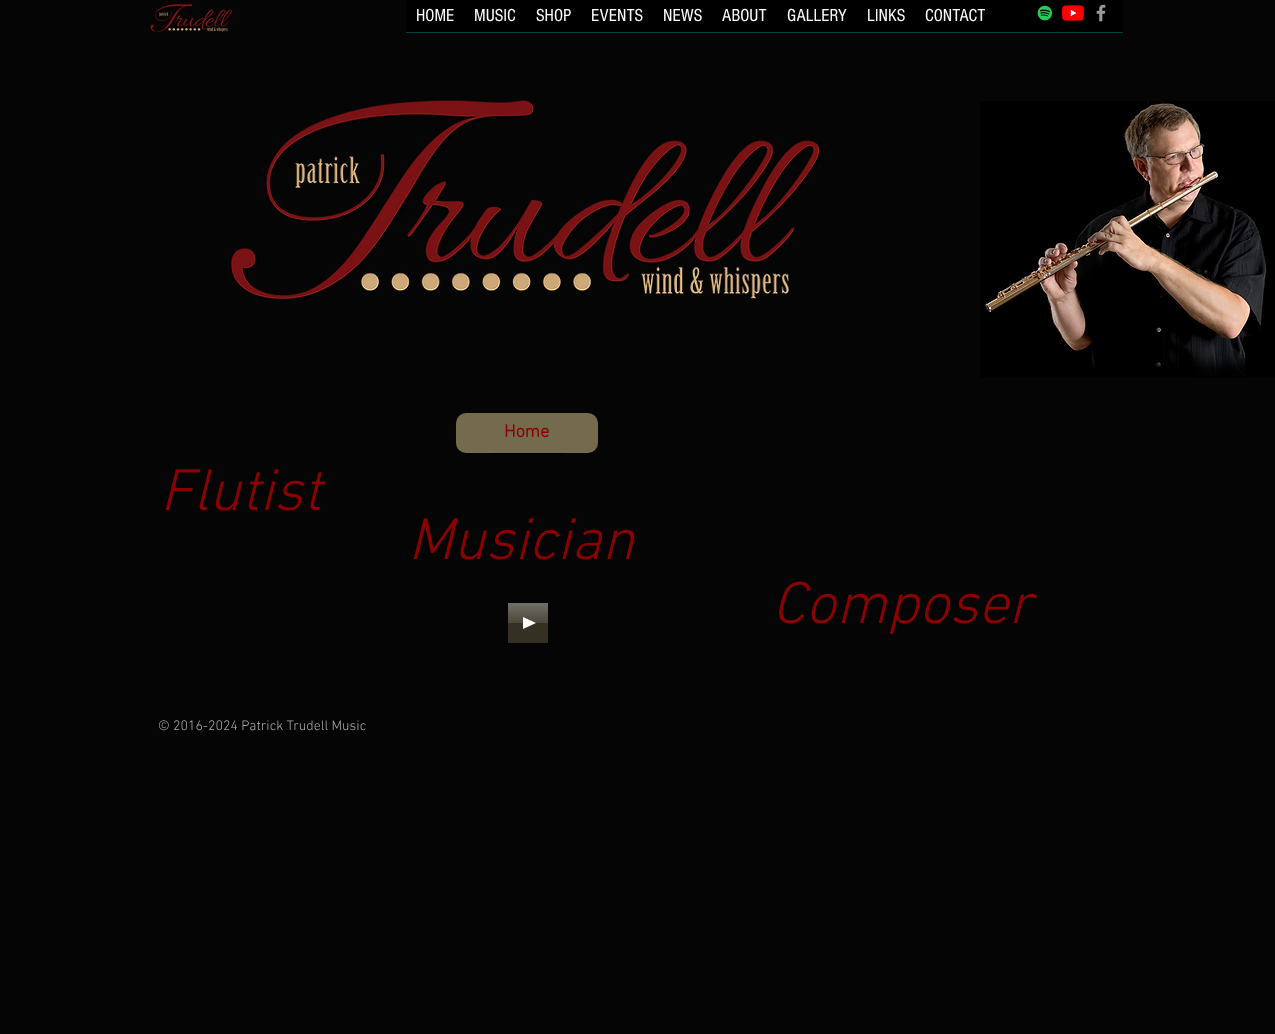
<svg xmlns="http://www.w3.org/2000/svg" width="1275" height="1034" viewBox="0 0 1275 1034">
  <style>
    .t1 { font: 18px 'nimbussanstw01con'; fill: #fff; }
    .t2 { font: bold 18px 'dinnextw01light'; fill: #8b0000; }
    .t3 { font: italic 300 60px 'dinnextw01light'; fill: #8b0000; }
    .t4 { font: 300 14px 'dinnextw01light'; fill: #aaa; }
  </style>
  <rect width="100%" height="100%" fill="#050505"/>
  <image x="150" y="4" width="82" height="28" href="images/1.png"/>
  <rect x="406" y="0" width="717" height="32" fill="#000"/>
  <rect x="406" y="32" width="717" height="1" fill="#003f44"/>
  <text x="416" y="21" class="t1">HOME</text>
  <text x="474" y="21" class="t1">MUSIC</text>
  <text x="536" y="21" class="t1">SHOP</text>
  <text x="591" y="21" class="t1">EVENTS</text>
  <text x="663" y="21" class="t1">NEWS</text>
  <text x="722" y="21" class="t1">ABOUT</text>
  <text x="787" y="21" class="t1">GALLERY</text>
  <text x="867" y="21" class="t1">LINKS</text>
  <text x="925" y="21" class="t1">CONTACT</text>
  <image x="1037" y="5" width="16" height="16" href="images/2.png"/>
  <image x="1062" y="5" width="22" height="16" href="images/3.png"/>
  <image x="1096" y="4" width="10" height="18" href="images/4.png"/>
  <image x="231" y="100" width="589" height="200" href="images/5.png"/>
  <image x="980" y="101" width="295" height="277" href="images/6.png"/>
  <rect x="456" y="413" width="142" height="40" rx="10" fill="#746a4e"/>
  <text x="504" y="437" class="t2">Home</text>
  <image x="490" y="453" width="53" height="2" href="images/7.png"/>
  <image x="543" y="453" width="21" height="2" href="images/8.png"/>
  <text x="160" y="510" class="t3">Flutist</text>
  <text x="408" y="559" class="t3">Musician</text>
  <rect x="508" y="603" width="40" height="40" fill="#343023"/>
  <image x="508" y="603" width="40" height="20" href="images/9.png"/>
  <path d="M523 629V617L536 623Z" fill="#fff"/>
  <text x="772" y="623" class="t3">Composer</text>
  <text x="158" y="730" class="t4">© 2016-2024 Patrick Trudell Music</text>
</svg>
